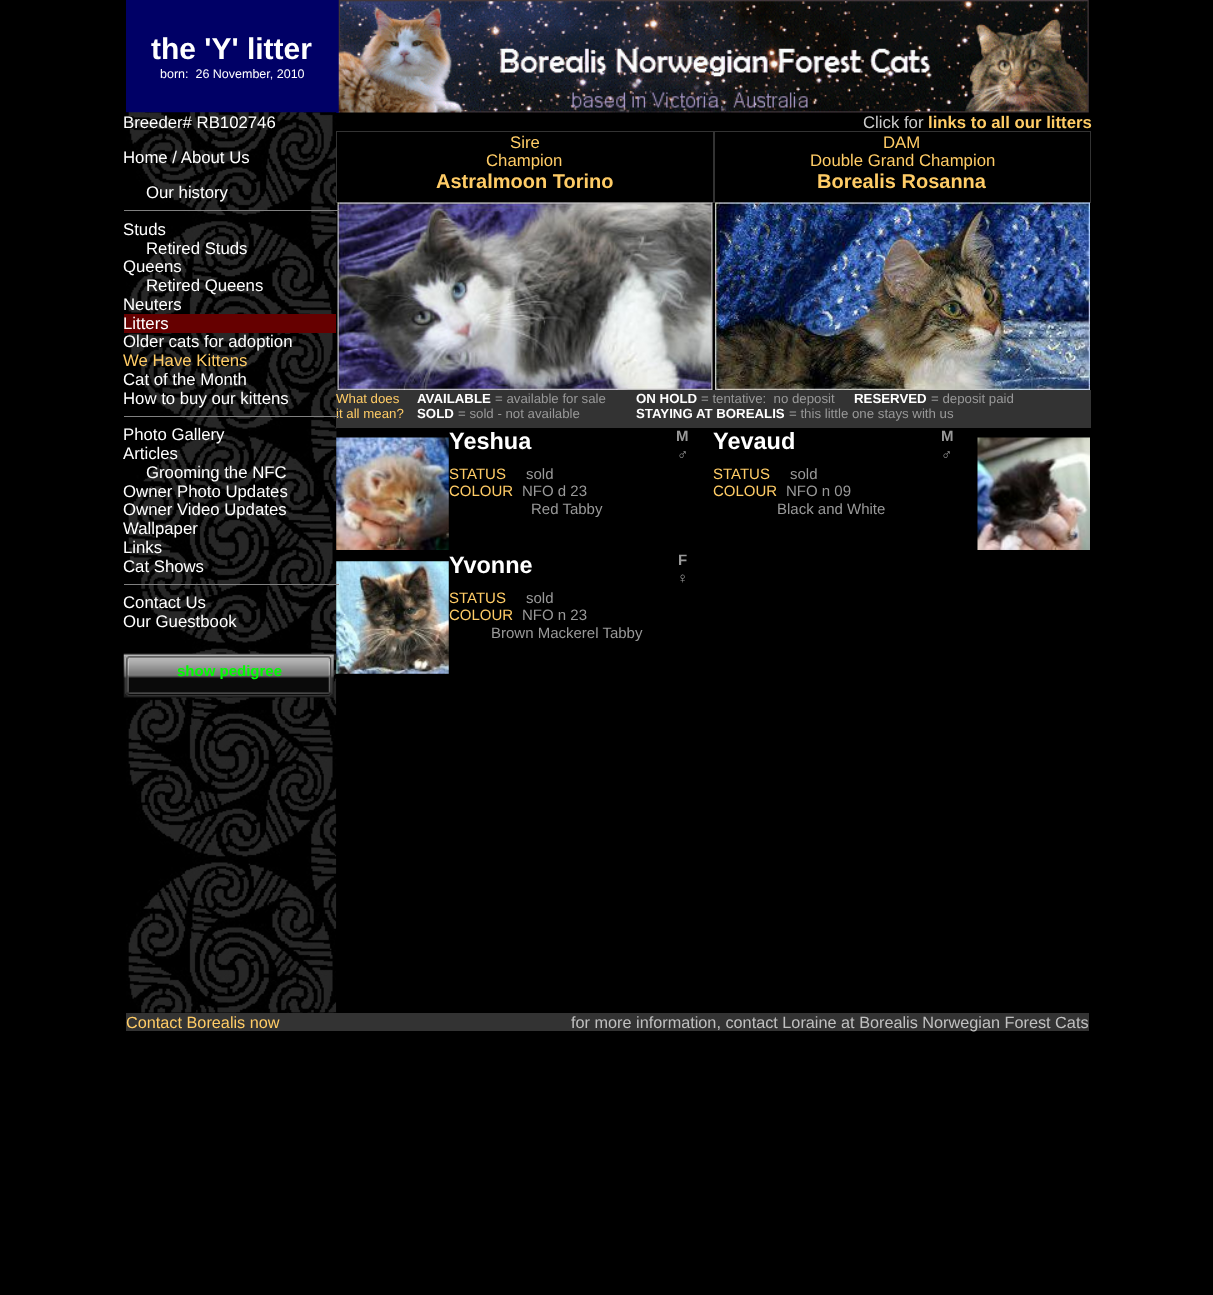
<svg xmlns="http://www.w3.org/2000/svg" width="1213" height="1295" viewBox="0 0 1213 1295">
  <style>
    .t1 { font: bold 30px Liberation Sans; fill: #fff; }
    .t2 { font: 12.5px Liberation Sans; fill: #fff; }
    .t3 { font: 16.75px Liberation Sans; fill: #fff; }
    .t4 { font: 16.75px Liberation Sans; fill: #fc6; }
    .t5 { font: 13.25px Liberation Sans; fill: #fc6; }
    .t6 { font: bold 15px Liberation Sans; fill: #0f0; }
    .t7 { font: 16.75px Liberation Sans; fill: #ccc; }
    .t8 { font: bold 16.75px Liberation Sans; fill: #fc6; }
    .t9 { font: bold 20px Liberation Sans; fill: #fc6; }
    .t10 { font: bold 13.25px Liberation Sans; fill: #fff; }
    .t11 { font: 13.25px Liberation Sans; fill: #999; }
    .t12 { font: bold 23.5px Liberation Sans; fill: #fff; }
    .t13 { font: bold 15px Liberation Sans; fill: #999; }
    .t14 { font: 15px Liberation Sans; fill: #fc6; }
    .t15 { font: 15px Liberation Sans; fill: #999; }
    .t16 { font: 16.25px Liberation Sans; fill: #fc6; }
    .t17 { font: 16.25px Liberation Sans; fill: #c0c0c0; }
  </style>
  <rect width="100%" height="100%" fill="#000"/>
  <rect x="126" y="0" width="213" height="113" fill="#006"/>
  <text x="151" y="59" class="t1">the 'Y' litter</text>
  <text x="160" y="78" class="t2" xml:space="preserve">born:  26 November, 2010</text>
  <image x="338" y="0" width="751" height="113" href="images/1.png"/>
  <image x="126" y="112" width="211" height="901" href="images/2.png"/>
  <image x="126" y="112" width="211" height="518" href="images/3.png"/>
  <text x="123" y="128" class="t3">Breeder# RB102746</text>
  <text x="123" y="163" class="t3">Home / About Us</text>
  <text x="146" y="198" class="t3">Our history</text>
  <rect x="336.5" y="131.5" width="377" height="71" fill="none" stroke="#333"/>
  <image x="337" y="202" width="376" height="188" href="images/5.png"/>
  <rect x="124" y="210" width="215" height="1" fill="#808080"/>
  <text x="123" y="235" class="t3">Studs</text>
  <text x="146" y="254" class="t3">Retired Studs</text>
  <text x="123" y="272" class="t3">Queens</text>
  <text x="146" y="291" class="t3">Retired Queens</text>
  <text x="123" y="310" class="t3">Neuters</text>
  <rect x="124" y="314" width="212" height="19" fill="#600"/>
  <text x="123" y="329" class="t3">Litters</text>
  <text x="123" y="347" class="t3">Older cats for adoption</text>
  <text x="123" y="366" class="t4">We Have Kittens</text>
  <text x="123" y="385" class="t3">Cat of the Month</text>
  <text x="123" y="404" class="t3">How to buy our kittens</text>
  <rect x="336" y="390" width="755" height="38" fill="#333"/>
  <text x="336" y="418" class="t5">it all mean?</text>
  <rect x="124" y="416" width="215" height="1" fill="#808080"/>
  <text x="123" y="440" class="t3">Photo Gallery</text>
  <text x="123" y="459" class="t3">Articles</text>
  <text x="146" y="478" class="t3">Grooming the NFC</text>
  <text x="123" y="497" class="t3">Owner Photo Updates</text>
  <text x="123" y="515" class="t3">Owner Video Updates</text>
  <text x="123" y="534" class="t3">Wallpaper</text>
  <text x="123" y="553" class="t3">Links</text>
  <text x="123" y="572" class="t3">Cat Shows</text>
  <image x="336" y="561" width="113" height="113" href="images/9.png"/>
  <rect x="124" y="584" width="215" height="1" fill="#808080"/>
  <text x="123" y="608" class="t3">Contact Us</text>
  <text x="123" y="627" class="t3">Our Guestbook</text>
  <image x="123" y="653" width="211" height="45" href="images/4.png"/>
  <text x="177" y="676" class="t6">show pedigree</text>
  <text x="863" y="128" class="t7">Click for</text>
  <text x="928" y="128" class="t8">links to all our litters</text>
  <text x="510" y="148" class="t4">Sire</text>
  <text x="486" y="166" class="t4">Champion</text>
  <text x="436" y="188" class="t9">Astralmoon Torino</text>
  <rect x="714.5" y="131.5" width="376" height="71" fill="none" stroke="#333"/>
  <text x="883" y="148" class="t4">DAM</text>
  <text x="810" y="166" class="t4">Double Grand Champion</text>
  <text x="817" y="188" class="t9">Borealis Rosanna</text>
  <image x="715" y="202" width="375" height="188" href="images/6.png"/>
  <text x="336" y="403" class="t5">What does</text>
  <text x="417" y="403" class="t10">AVAILABLE</text>
  <text x="495" y="403" class="t11">= available for sale</text>
  <text x="636" y="403" class="t10">ON HOLD</text>
  <text x="701" y="403" class="t11" xml:space="preserve">= tentative:  no deposit</text>
  <text x="854" y="403" class="t10">RESERVED</text>
  <text x="931" y="403" class="t11">= deposit paid</text>
  <text x="417" y="418" class="t10">SOLD</text>
  <text x="458" y="418" class="t11">= sold - not available</text>
  <rect x="808" y="405" width="152" height="1" fill="#333"/>
  <text x="636" y="418" class="t10">STAYING AT BOREALIS</text>
  <text x="789" y="418" class="t11">= this little one stays with us</text>
  <image x="336" y="437" width="113" height="113" href="images/7.png"/>
  <text x="449" y="449" class="t12">Yeshua</text>
  <text x="676" y="441" class="t13">M</text>
  <text x="677" y="459" class="t13">♂</text>
  <text x="449" y="479" class="t14">STATUS</text>
  <text x="526" y="479" class="t15">sold</text>
  <text x="449" y="496" class="t14">COLOUR</text>
  <text x="522" y="496" class="t15">NFO d 23</text>
  <text x="531" y="514" class="t15">Red Tabby</text>
  <text x="713" y="449" class="t12">Yevaud</text>
  <text x="941" y="441" class="t13">M</text>
  <text x="941" y="459" class="t13">♂</text>
  <text x="713" y="479" class="t14">STATUS</text>
  <text x="790" y="479" class="t15">sold</text>
  <text x="713" y="496" class="t14">COLOUR</text>
  <text x="786" y="496" class="t15">NFO n 09</text>
  <text x="777" y="514" class="t15">Black and White</text>
  <image x="977" y="437" width="113" height="113" href="images/8.png"/>
  <text x="449" y="573" class="t12">Yvonne</text>
  <text x="678" y="565" class="t13">F</text>
  <text x="677" y="583" class="t13">♀</text>
  <text x="449" y="603" class="t14">STATUS</text>
  <text x="526" y="603" class="t15">sold</text>
  <text x="449" y="620" class="t14">COLOUR</text>
  <text x="522" y="620" class="t15">NFO n 23</text>
  <text x="491" y="638" class="t15">Brown Mackerel Tabby</text>
  <rect x="336" y="679" width="1" height="36" fill="#000000bf"/>
  <rect x="336" y="789" width="1" height="111" fill="#000000bf"/>
  <rect x="336" y="900" width="1" height="112" fill="#000000bf"/>
  <rect x="126" y="1013" width="963" height="18" fill="#333"/>
  <text x="126" y="1028" class="t16">Contact Borealis now</text>
  <text x="571" y="1028" class="t17">for more information, contact Loraine at Borealis Norwegian Forest Cats</text>
</svg>
